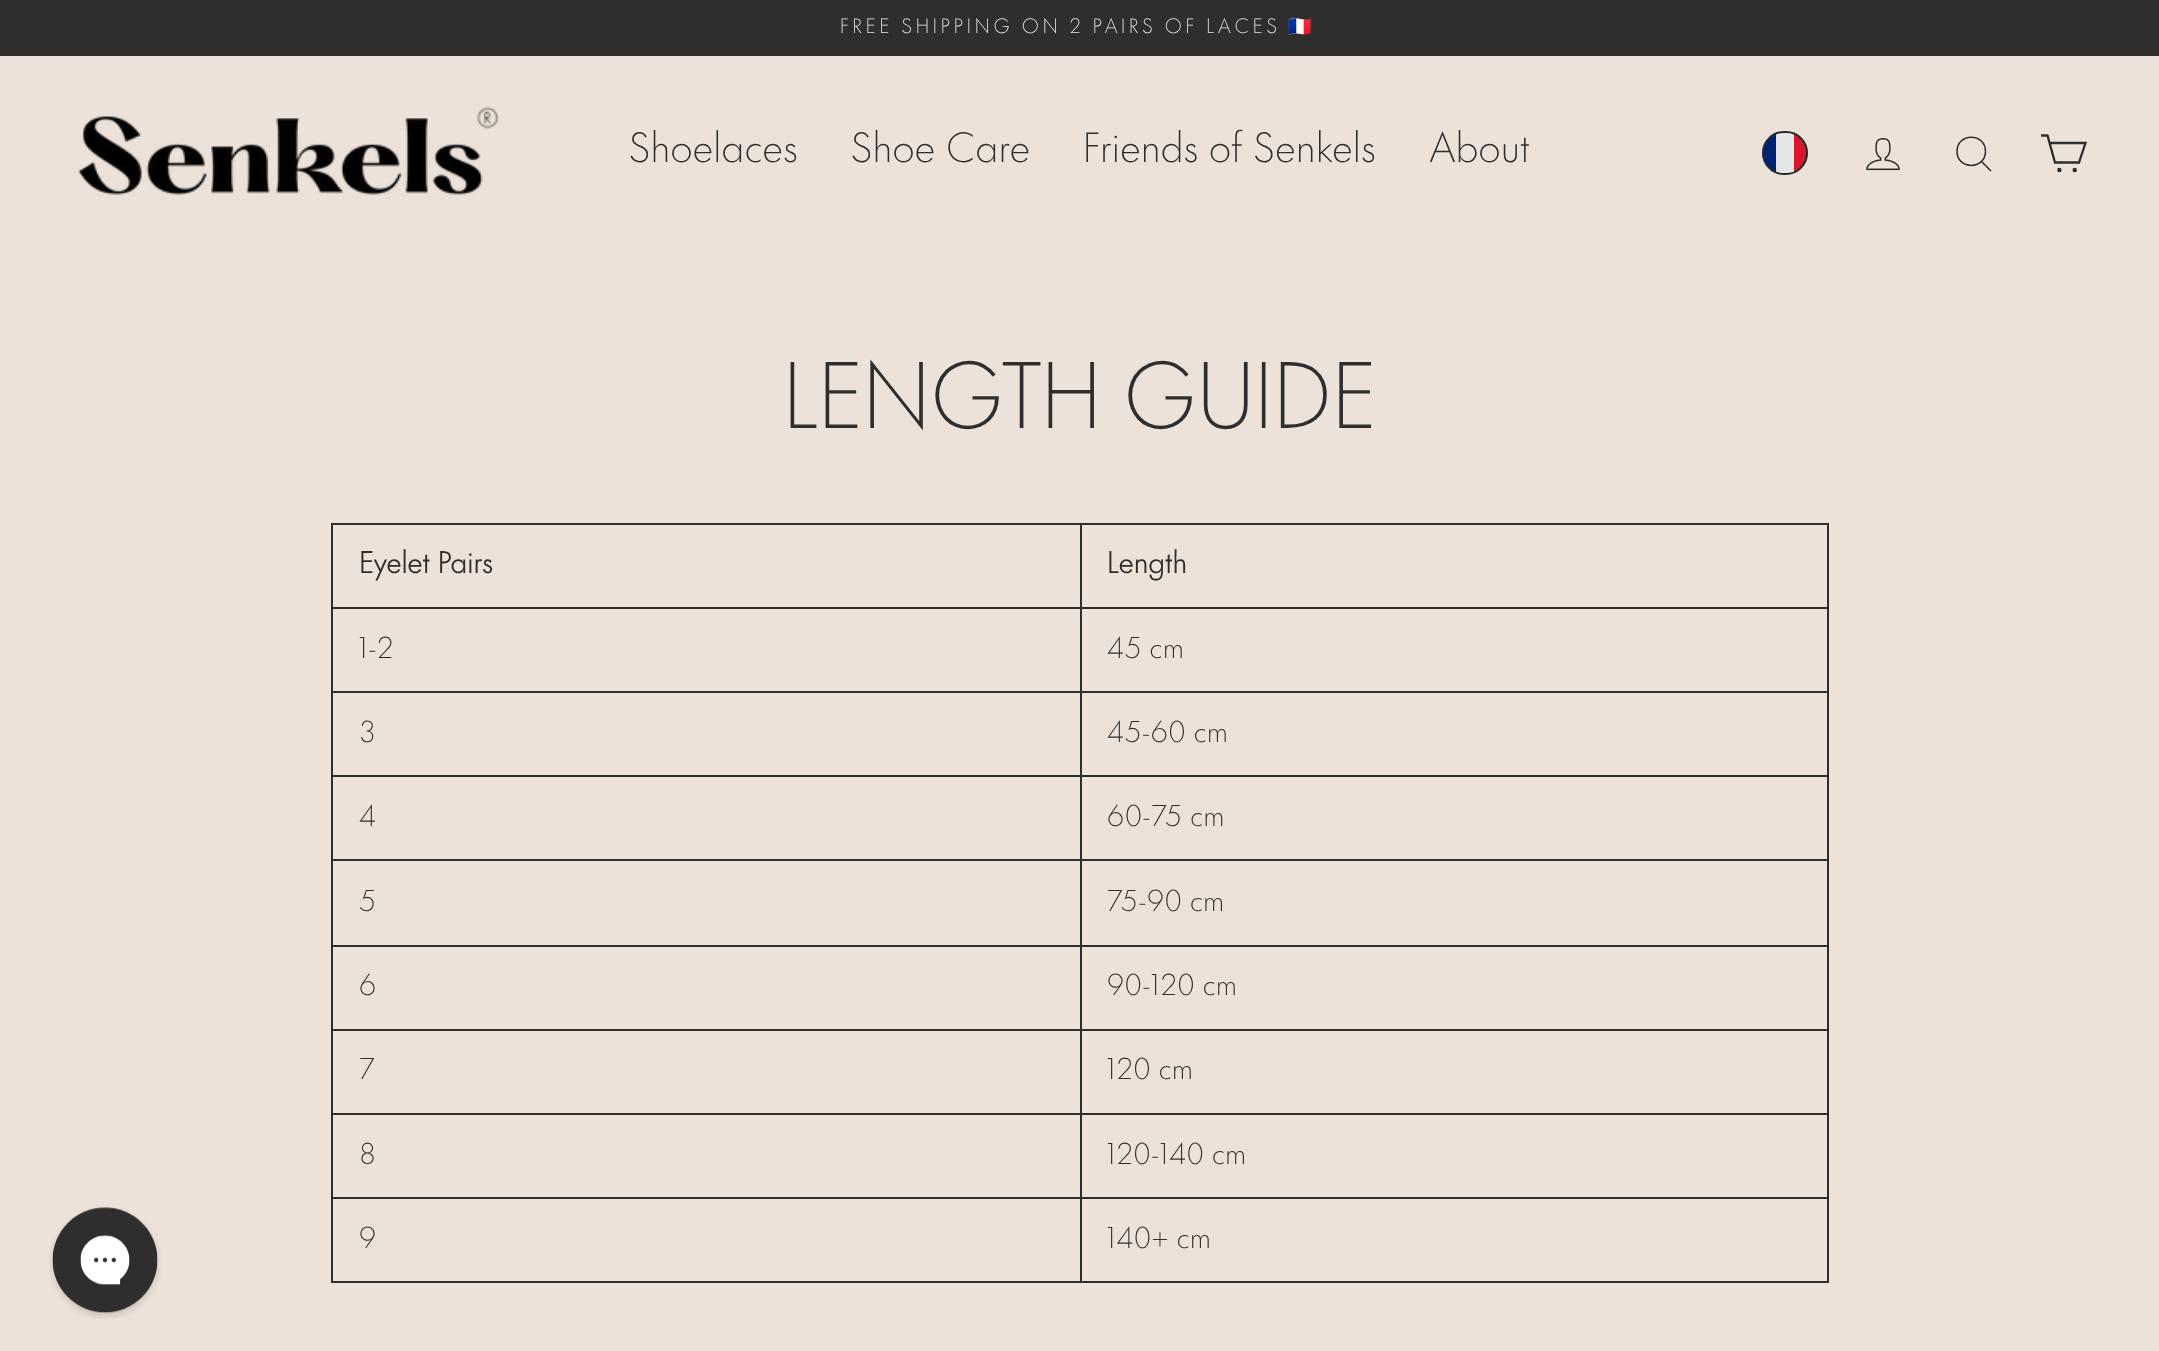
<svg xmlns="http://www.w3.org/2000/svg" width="2159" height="1351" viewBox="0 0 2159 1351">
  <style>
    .t1 { font: 300 19.25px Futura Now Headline; letter-spacing: 3.85px; fill: #ece2d9; }
    .t2 { font: 19.25px Noto Color Emoji; letter-spacing: 3.85px; fill: #ece2d9; }
    .t3 { font: 300 39px Futura Now Headline; letter-spacing: 0.75px; fill: #2e2e2e; }
    .t4 { font: 300 87.5px Futura Now Headline; fill: #2e2e2e; }
    .t5 { font: bold 28px Futura Now Headline; letter-spacing: 0.75px; fill: #2e2e2e; }
    .t6 { font: 300 28px Futura Now Headline; letter-spacing: 0.75px; fill: #2e2e2e; }
  </style>
  <rect width="100%" height="100%" fill="#ece2d9"/>
  <rect x="0" y="0" width="2159" height="56" fill="#2e2e2e"/>
  <text x="840" y="33" word-spacing="-0.5" class="t1">FREE SHIPPING ON 2 PAIRS OF LACES</text>
  <text x="1288" y="33" class="t2">🇫🇷</text>
  <image x="78" y="106" width="421" height="89" href="images/1.png"/>
  <text x="629" y="162" class="t3">Shoelaces</text>
  <text x="851" y="162" class="t3">Shoe Care</text>
  <text x="1083" y="162" class="t3">Friends of Senkels</text>
  <text x="1430" y="162" class="t3">About</text>
  <image x="1762" y="131" width="46" height="44" href="images/2.png"/>
  <rect x="1763" y="132" width="44" height="42" rx="21" fill="none" stroke="#292929" stroke-width="2"/>
  <image x="1866" y="138" width="34" height="33" href="images/3.png"/>
  <path d="M1985.5 151.5C1985.5 170 1957 170 1957 151.5C1957 132.5 1985.5 132.5 1985.5 151.5ZM1991 171L1981.5 161.5" fill="none" stroke="#2e2e2e" stroke-width="1.5"/>
  <path d="M2049.5 143H2085.5L2079 162.5H2055L2047.5 135.5H2041" fill="none" stroke="#2e2e2e" stroke-width="2.3"/>
  <circle cx="2059.4" cy="170.1" r="1.5" fill="#2e2e2e" stroke="#2e2e2e" stroke-width="1.5"/>
  <circle cx="2074.7" cy="170.1" r="1.5" fill="#2e2e2e" stroke="#2e2e2e" stroke-width="1.5"/>
  <text x="783" y="428" class="t4">LENGTH GUIDE</text>
  <rect x="331" y="523" width="1498" height="760" fill="#2e2e2e"/>
  <rect x="333" y="525" width="747" height="82" fill="#ece2d9"/>
  <text x="359" y="573" class="t5">Eyelet Pairs</text>
  <rect x="1082" y="525" width="745" height="82" fill="#ece2d9"/>
  <text x="1107" y="573" class="t5">Length</text>
  <rect x="333" y="609" width="747" height="82" fill="#ece2d9"/>
  <text x="359" y="658" class="t6">1-2</text>
  <rect x="1082" y="609" width="745" height="82" fill="#ece2d9"/>
  <text x="1107" y="658" class="t6">45 cm</text>
  <rect x="333" y="693" width="747" height="82" fill="#ece2d9"/>
  <text x="359" y="742" class="t6">3</text>
  <rect x="1082" y="693" width="745" height="82" fill="#ece2d9"/>
  <text x="1107" y="742" class="t6">45-60 cm</text>
  <rect x="333" y="777" width="747" height="82" fill="#ece2d9"/>
  <text x="359" y="826" class="t6">4</text>
  <rect x="1082" y="777" width="745" height="82" fill="#ece2d9"/>
  <text x="1107" y="826" class="t6">60-75 cm</text>
  <rect x="333" y="861" width="747" height="84" fill="#ece2d9"/>
  <text x="359" y="911" class="t6">5</text>
  <rect x="1082" y="861" width="745" height="84" fill="#ece2d9"/>
  <text x="1107" y="911" class="t6">75-90 cm</text>
  <rect x="333" y="947" width="747" height="82" fill="#ece2d9"/>
  <text x="359" y="995" class="t6">6</text>
  <rect x="1082" y="947" width="745" height="82" fill="#ece2d9"/>
  <text x="1107" y="995" class="t6">90-120 cm</text>
  <rect x="333" y="1031" width="747" height="82" fill="#ece2d9"/>
  <text x="359" y="1079" class="t6">7</text>
  <rect x="1082" y="1031" width="745" height="82" fill="#ece2d9"/>
  <text x="1107" y="1079" class="t6">120 cm</text>
  <rect x="333" y="1115" width="747" height="82" fill="#ece2d9"/>
  <text x="359" y="1164" class="t6">8</text>
  <rect x="1082" y="1115" width="745" height="82" fill="#ece2d9"/>
  <text x="1107" y="1164" class="t6">120-140 cm</text>
  <rect x="333" y="1199" width="747" height="82" fill="#ece2d9"/>
  <text x="359" y="1248" class="t6">9</text>
  <rect x="1082" y="1199" width="745" height="82" fill="#ece2d9"/>
  <text x="1107" y="1248" class="t6">140+ cm</text>
  <image x="49" y="1207" width="112" height="112" href="images/4.png"/>
</svg>
